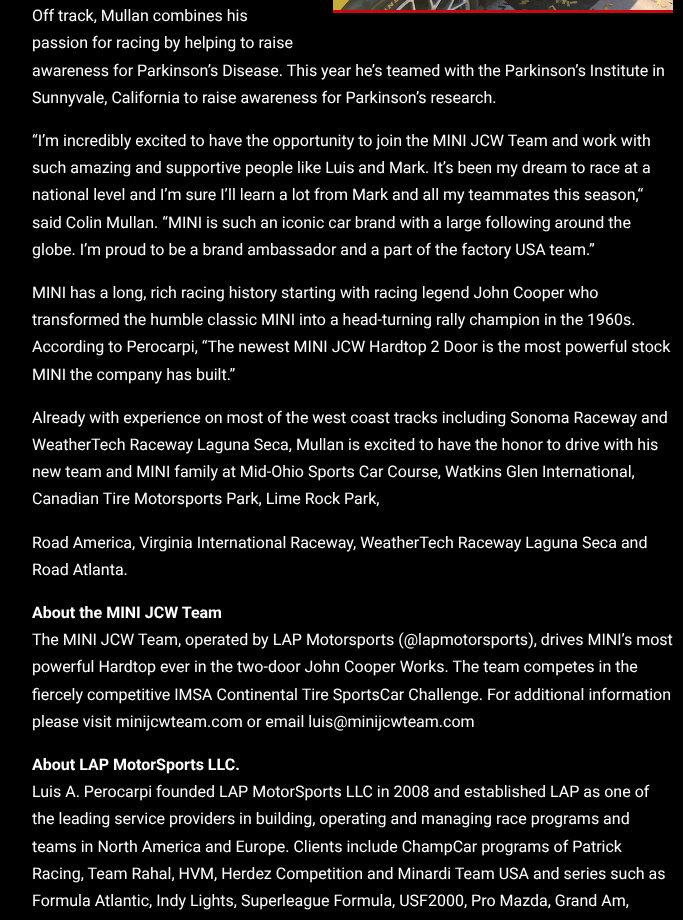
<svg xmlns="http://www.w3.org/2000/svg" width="683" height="920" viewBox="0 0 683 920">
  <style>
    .t1 { font: 16px Roboto; fill: #fff; }
    .t2 { font: bold 16px Roboto; fill: #fff; }
  </style>
  <rect width="100%" height="100%" fill="#000"/>
  <rect x="333" y="10" width="340" height="3" fill="#cc0814"/>
  <image x="333" y="0" width="340" height="10" href="images/1.png"/>
  <text x="32" y="21" class="t1">Off track, Mullan combines his</text>
  <text x="32" y="48" class="t1">passion for racing by helping to raise</text>
  <text x="32" y="76" class="t1">awareness for Parkinson’s Disease. This year he’s teamed with the Parkinson’s Institute in</text>
  <text x="32" y="103" class="t1">Sunnyvale, California to raise awareness for Parkinson’s research.</text>
  <text x="32" y="146" class="t1">“I’m incredibly excited to have the opportunity to join the MINI JCW Team and work with</text>
  <text x="32" y="173" class="t1">such amazing and supportive people like Luis and Mark. It’s been my dream to race at a</text>
  <text x="32" y="200" class="t1">national level and I’m sure I’ll learn a lot from Mark and all my teammates this season,“</text>
  <text x="32" y="228" class="t1">said Colin Mullan. “MINI is such an iconic car brand with a large following around the</text>
  <text x="32" y="255" class="t1">globe. I’m proud to be a brand ambassador and a part of the factory USA team.”</text>
  <text x="32" y="298" class="t1">MINI has a long, rich racing history starting with racing legend John Cooper who</text>
  <text x="32" y="325" class="t1">transformed the humble classic MINI into a head-turning rally champion in the 1960s.</text>
  <text x="32" y="352" class="t1">According to Perocarpi, “The newest MINI JCW Hardtop 2 Door is the most powerful stock</text>
  <text x="32" y="380" class="t1">MINI the company has built.”</text>
  <text x="32" y="423" class="t1">Already with experience on most of the west coast tracks including Sonoma Raceway and</text>
  <text x="32" y="450" class="t1">WeatherTech Raceway Laguna Seca, Mullan is excited to have the honor to drive with his</text>
  <text x="32" y="477" class="t1">new team and MINI family at Mid-Ohio Sports Car Course, Watkins Glen International,</text>
  <text x="32" y="504" class="t1">Canadian Tire Motorsports Park, Lime Rock Park,</text>
  <text x="32" y="548" class="t1">Road America, Virginia International Raceway, WeatherTech Raceway Laguna Seca and</text>
  <text x="32" y="575" class="t1">Road Atlanta.</text>
  <text x="32" y="618" class="t2">About the MINI JCW Team</text>
  <text x="32" y="645" class="t1">The MINI JCW Team, operated by LAP Motorsports (@lapmotorsports), drives MINI’s most</text>
  <text x="32" y="672" class="t1">powerful Hardtop ever in the two-door John Cooper Works. The team competes in the</text>
  <text x="32" y="700" class="t1">fiercely competitive IMSA Continental Tire SportsCar Challenge. For additional information</text>
  <text x="32" y="727" class="t1">please visit minijcwteam.com or email luis@minijcwteam.com</text>
  <text x="32" y="770" class="t2">About LAP MotorSports LLC.</text>
  <text x="32" y="797" class="t1">Luis A. Perocarpi founded LAP MotorSports LLC in 2008 and established LAP as one of</text>
  <text x="32" y="824" class="t1">the leading service providers in building, operating and managing race programs and</text>
  <text x="32" y="852" class="t1">teams in North America and Europe. Clients include ChampCar programs of Patrick</text>
  <text x="32" y="879" class="t1">Racing, Team Rahal, HVM, Herdez Competition and Minardi Team USA and series such as</text>
  <text x="32" y="906" class="t1">Formula Atlantic, Indy Lights, Superleague Formula, USF2000, Pro Mazda, Grand Am,</text>
</svg>
